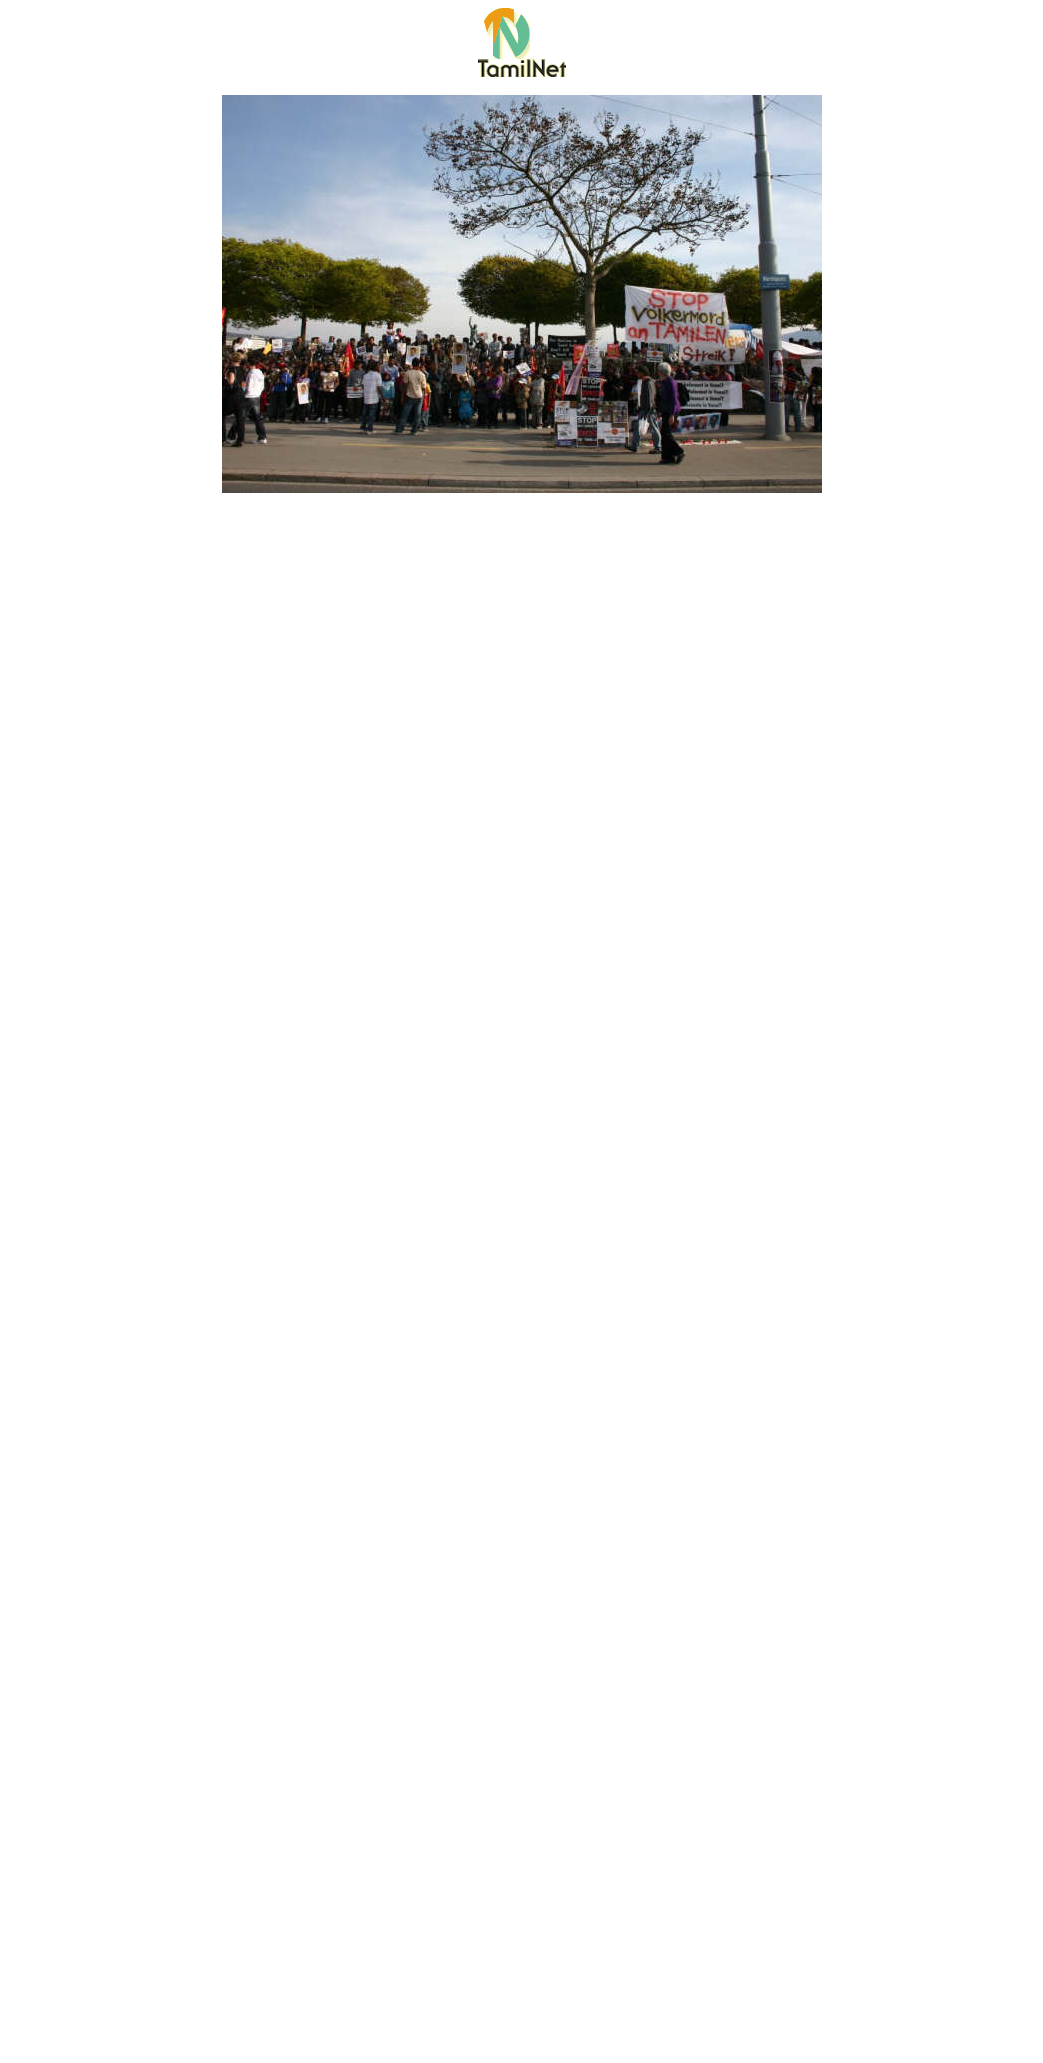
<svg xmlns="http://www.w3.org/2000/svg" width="1043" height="2063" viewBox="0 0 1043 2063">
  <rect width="100%" height="100%" fill="#fff"/>
  <image x="478" y="8" width="88" height="69" href="images/1.png"/>
  <image x="222" y="95" width="600" height="398" href="images/2.png"/>
</svg>
